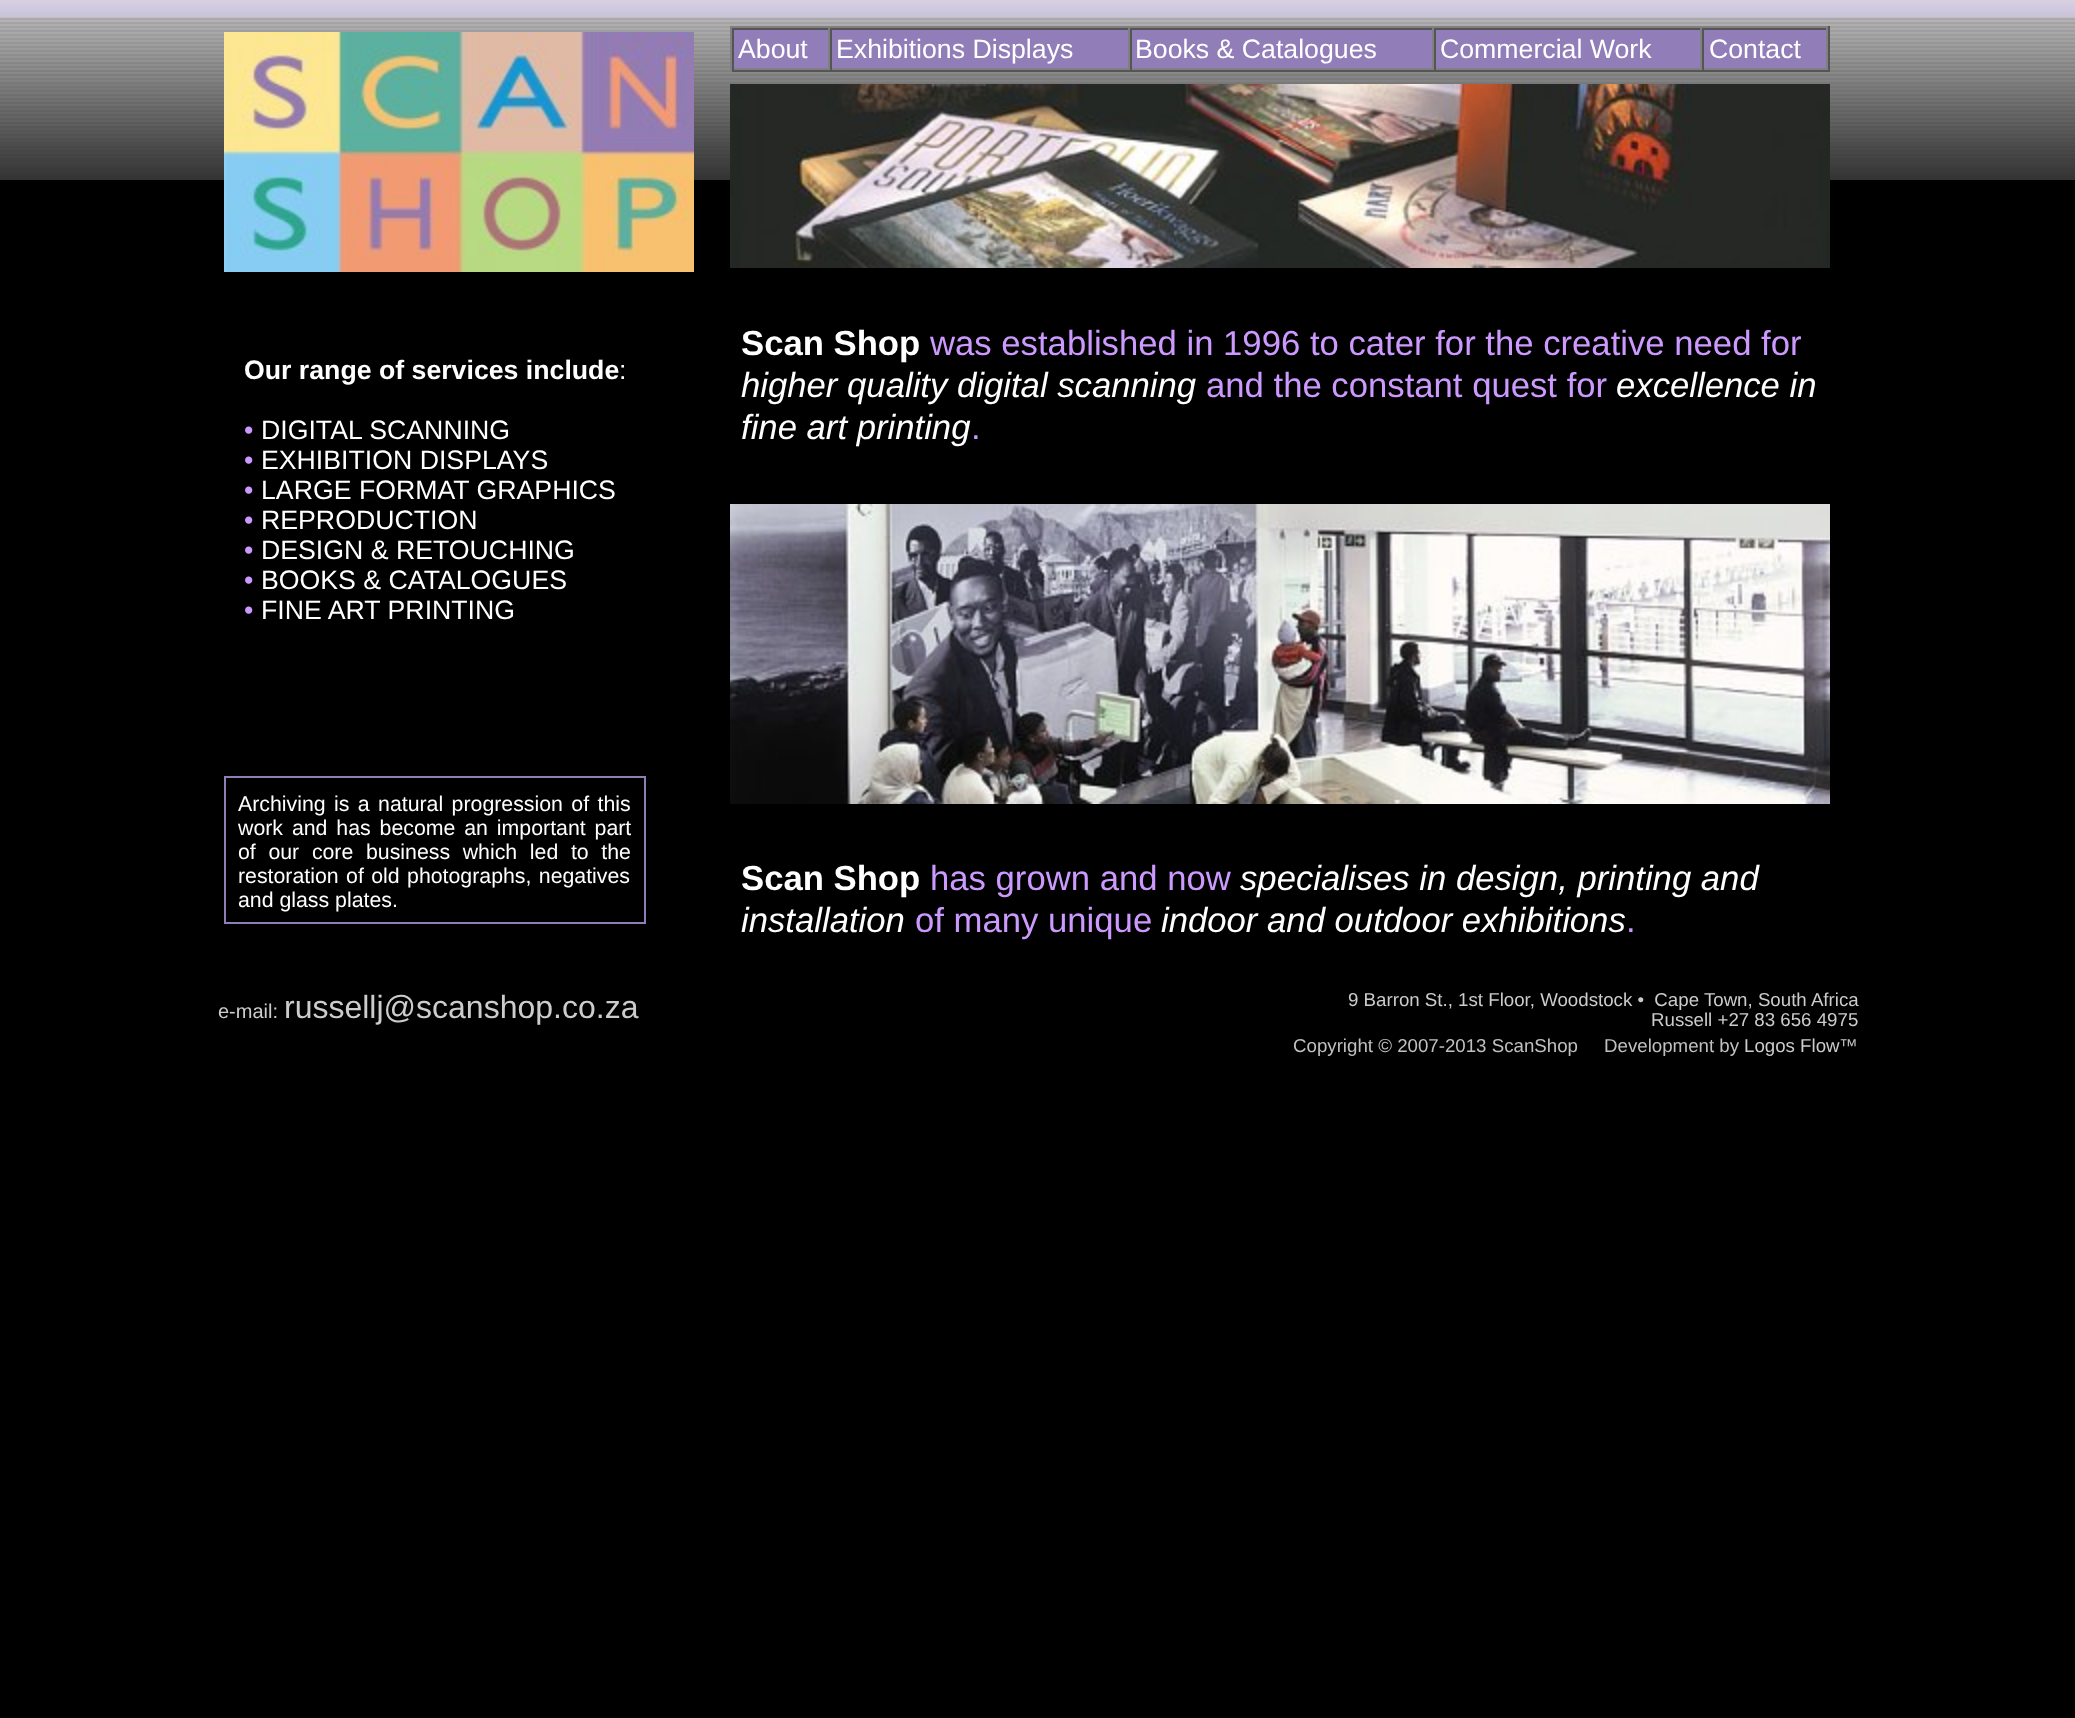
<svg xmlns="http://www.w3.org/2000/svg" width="2075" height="1718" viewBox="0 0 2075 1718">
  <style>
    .t1 { font: bold 26.7px Liberation Sans; fill: #fff; }
    .t2 { font: 26.7px Liberation Sans; fill: #fff; }
    .t3 { font: 26.7px Liberation Sans; fill: #c9f; }
    .t4 { font: 21.3px Liberation Sans; fill: #fff; }
    .t5 { font: bold 34.7px Liberation Sans; fill: #fff; }
    .t6 { font: 34.7px Liberation Sans; fill: #c9f; }
    .t7 { font: italic 34.7px Liberation Sans; fill: #fff; }
    .t8 { font: 20px Liberation Sans; fill: #ccc; }
    .t9 { font: 32px Liberation Sans; fill: #ccc; }
    .t10 { font: 18.7px Liberation Sans; fill: #ccc; }
    .t11 { font: 18.7px Liberation Sans; fill: #c0c0c0; }
  </style>
  <rect width="100%" height="100%" fill="#000"/>
  <image x="0" y="0" width="2075" height="180" href="images/1.png"/>
  <image x="224" y="32" width="470" height="240" href="images/2.png"/>
  <text x="244" y="379" class="t1">Our range of services include</text>
  <text x="619" y="379" class="t2">:</text>
  <text x="244" y="439" class="t3">•</text>
  <text x="261" y="439" class="t2">DIGITAL SCANNING</text>
  <text x="244" y="469" class="t3">•</text>
  <text x="261" y="469" class="t2">EXHIBITION DISPLAYS</text>
  <text x="244" y="499" class="t3">•</text>
  <text x="261" y="499" class="t2">LARGE FORMAT GRAPHICS</text>
  <text x="244" y="529" class="t3">•</text>
  <text x="261" y="529" class="t2">REPRODUCTION</text>
  <text x="244" y="559" class="t3">•</text>
  <text x="261" y="559" class="t2">DESIGN &amp; RETOUCHING</text>
  <text x="244" y="589" class="t3">•</text>
  <text x="261" y="589" class="t2">BOOKS &amp; CATALOGUES</text>
  <text x="244" y="619" class="t3">•</text>
  <text x="261" y="619" class="t2">FINE ART PRINTING</text>
  <rect x="225" y="777" width="420" height="146" fill="none" stroke="#917db8" stroke-width="2"/>
  <text x="238" y="811" word-spacing="2.5" class="t4">Archiving is a natural progression of this</text>
  <text x="238" y="835" word-spacing="3" class="t4">work and has become an important part</text>
  <text x="238" y="859" word-spacing="6.75" class="t4">of our core business which led to the</text>
  <text x="238" y="883" word-spacing="1.5" class="t4">restoration of old photographs, negatives</text>
  <text x="238" y="907" class="t4">and glass plates.</text>
  <rect x="730" y="26" width="1100" height="2" fill="#808080"/>
  <rect x="1828" y="26" width="2" height="46" fill="#555"/>
  <rect x="730" y="70" width="1100" height="2" fill="#555"/>
  <rect x="730" y="26" width="2" height="46" fill="#808080"/>
  <rect x="734" y="30" width="94" height="38" fill="#917db8"/>
  <rect x="732" y="28" width="1096" height="2" fill="#555"/>
  <rect x="828" y="28" width="2" height="42" fill="#808080"/>
  <rect x="732" y="68" width="98" height="2" fill="#808080"/>
  <rect x="732" y="28" width="2" height="42" fill="#555"/>
  <text x="738" y="58" class="t2">About</text>
  <rect x="832" y="30" width="296" height="38" fill="#917db8"/>
  <rect x="1128" y="28" width="2" height="42" fill="#808080"/>
  <rect x="830" y="68" width="300" height="2" fill="#808080"/>
  <rect x="830" y="28" width="2" height="42" fill="#555"/>
  <text x="836" y="58" class="t2">Exhibitions Displays</text>
  <rect x="1132" y="30" width="300" height="38" fill="#917db8"/>
  <rect x="1432" y="28" width="2" height="42" fill="#808080"/>
  <rect x="1130" y="68" width="304" height="2" fill="#808080"/>
  <rect x="1130" y="28" width="2" height="42" fill="#555"/>
  <text x="1135" y="58" class="t2">Books &amp; Catalogues</text>
  <rect x="1436" y="30" width="264" height="38" fill="#917db8"/>
  <rect x="1700" y="28" width="2" height="42" fill="#808080"/>
  <rect x="1434" y="68" width="268" height="2" fill="#808080"/>
  <rect x="1434" y="28" width="2" height="42" fill="#555"/>
  <text x="1440" y="58" class="t2">Commercial Work</text>
  <rect x="1704" y="30" width="122" height="38" fill="#917db8"/>
  <rect x="1826" y="28" width="2" height="42" fill="#808080"/>
  <rect x="1702" y="68" width="126" height="2" fill="#808080"/>
  <rect x="1702" y="28" width="2" height="42" fill="#555"/>
  <text x="1709" y="58" class="t2">Contact</text>
  <image x="730" y="84" width="1100" height="184" href="images/3.png"/>
  <text x="741" y="355" class="t5">Scan Shop</text>
  <text x="930" y="355" class="t6">was established in 1996 to cater for the creative need for</text>
  <text x="741" y="397" class="t7">higher quality digital scanning</text>
  <text x="1206" y="397" class="t6">and the constant quest for</text>
  <text x="1616" y="397" class="t7">excellence in</text>
  <text x="741" y="439" class="t7">fine art printing</text>
  <text x="971" y="439" class="t6">.</text>
  <image x="730" y="504" width="1100" height="300" href="images/4.png"/>
  <text x="741" y="890" class="t5">Scan Shop</text>
  <text x="930" y="890" class="t6">has grown and now</text>
  <text x="1240" y="890" class="t7">specialises in design, printing and</text>
  <text x="741" y="932" class="t7">installation</text>
  <text x="915" y="932" class="t6">of many unique</text>
  <text x="1161" y="932" class="t7">indoor and outdoor exhibitions</text>
  <text x="1626" y="932" class="t6">.</text>
  <text x="218" y="1018" class="t8">e-mail:</text>
  <text x="284" y="1018" class="t9">russellj@scanshop.co.za</text>
  <text x="1348" y="1006" class="t10" xml:space="preserve">9 Barron St., 1st Floor, Woodstock •  Cape Town, South Africa</text>
  <text x="1651" y="1026" class="t10">Russell +27 83 656 4975</text>
  <text x="1293" y="1052" class="t11">Copyright © 2007-2013 ScanShop</text>
  <text x="1604" y="1052" class="t11">Development by</text>
  <text x="1744" y="1052" class="t10">Logos Flow</text>
  <text x="1839" y="1052" class="t11">™</text>
</svg>
